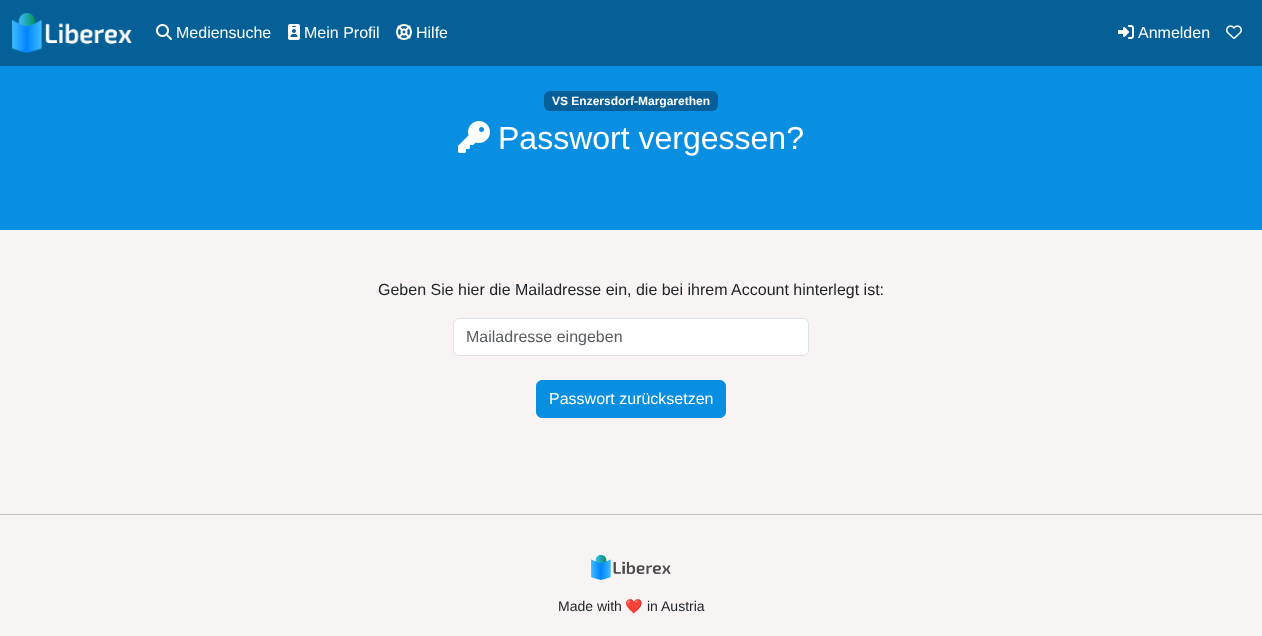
<svg xmlns="http://www.w3.org/2000/svg" width="1262" height="636" viewBox="0 0 1262 636">
  <style>
    .t1 { font: 16px Liberation Sans; fill: #fff; }
    .t2 { font: bold 12px Liberation Sans; fill: #fff; }
    .t3 { font: 32px Liberation Sans; fill: #fff; }
    .t4 { font: 16px Liberation Sans; fill: #212529; }
    .t5 { font: 16px Liberation Sans; fill: #595c5f; }
    .t6 { font: 14px Liberation Sans; fill: #212529; }
    .t7 { font: 14px Noto Color Emoji; fill: #212529; }
  </style>
  <rect width="100%" height="100%" fill="#f8f4f4"/>
  <rect x="0" y="0" width="1262" height="66" fill="#066098"/>
  <image x="12" y="13" width="120" height="40" href="images/1.png"/>
  <image x="156" y="24" width="16" height="16" href="images/2.png"/>
  <text x="176" y="38" class="t1">Mediensuche</text>
  <image x="288" y="24" width="12" height="16" href="images/3.png"/>
  <text x="304" y="38" class="t1">Mein Profil</text>
  <image x="396" y="24" width="16" height="16" href="images/4.png"/>
  <text x="416" y="38" class="t1">Hilfe</text>
  <image x="1118" y="25" width="16" height="14" href="images/5.png"/>
  <text x="1138" y="38" class="t1">Anmelden</text>
  <image x="1226" y="25" width="16" height="14" href="images/6.png"/>
  <rect x="0" y="66" width="1262" height="164" fill="#098fe2"/>
  <rect x="544" y="91" width="174" height="20" rx="6" fill="#065f98"/>
  <text x="552" y="105" class="t2">VS Enzersdorf-Margarethen</text>
  <image x="458" y="121" width="32" height="32" href="images/7.png"/>
  <text x="498" y="149" class="t3">Passwort vergessen?</text>
  <text x="378" y="295" class="t4">Geben Sie hier die Mailadresse ein, die bei ihrem Account hinterlegt ist:</text>
  <rect x="453.5" y="318.5" width="355" height="37" rx="5.5" fill="#fff" stroke="#dee2e6"/>
  <text x="466" y="342" class="t5">Mailadresse eingeben</text>
  <rect x="536.5" y="380.5" width="189" height="37" rx="5.5" fill="#098fe2" stroke="#098fe2"/>
  <text x="549" y="404" class="t1">Passwort zurücksetzen</text>
  <rect x="0" y="514" width="1262" height="1" fill="#c2c0c1"/>
  <image x="591" y="555" width="80" height="25" href="images/8.png"/>
  <text x="558" y="611" class="t6">Made with</text>
  <text x="625" y="611" class="t7">❤️</text>
  <text x="647" y="611" class="t6">in Austria</text>
</svg>
